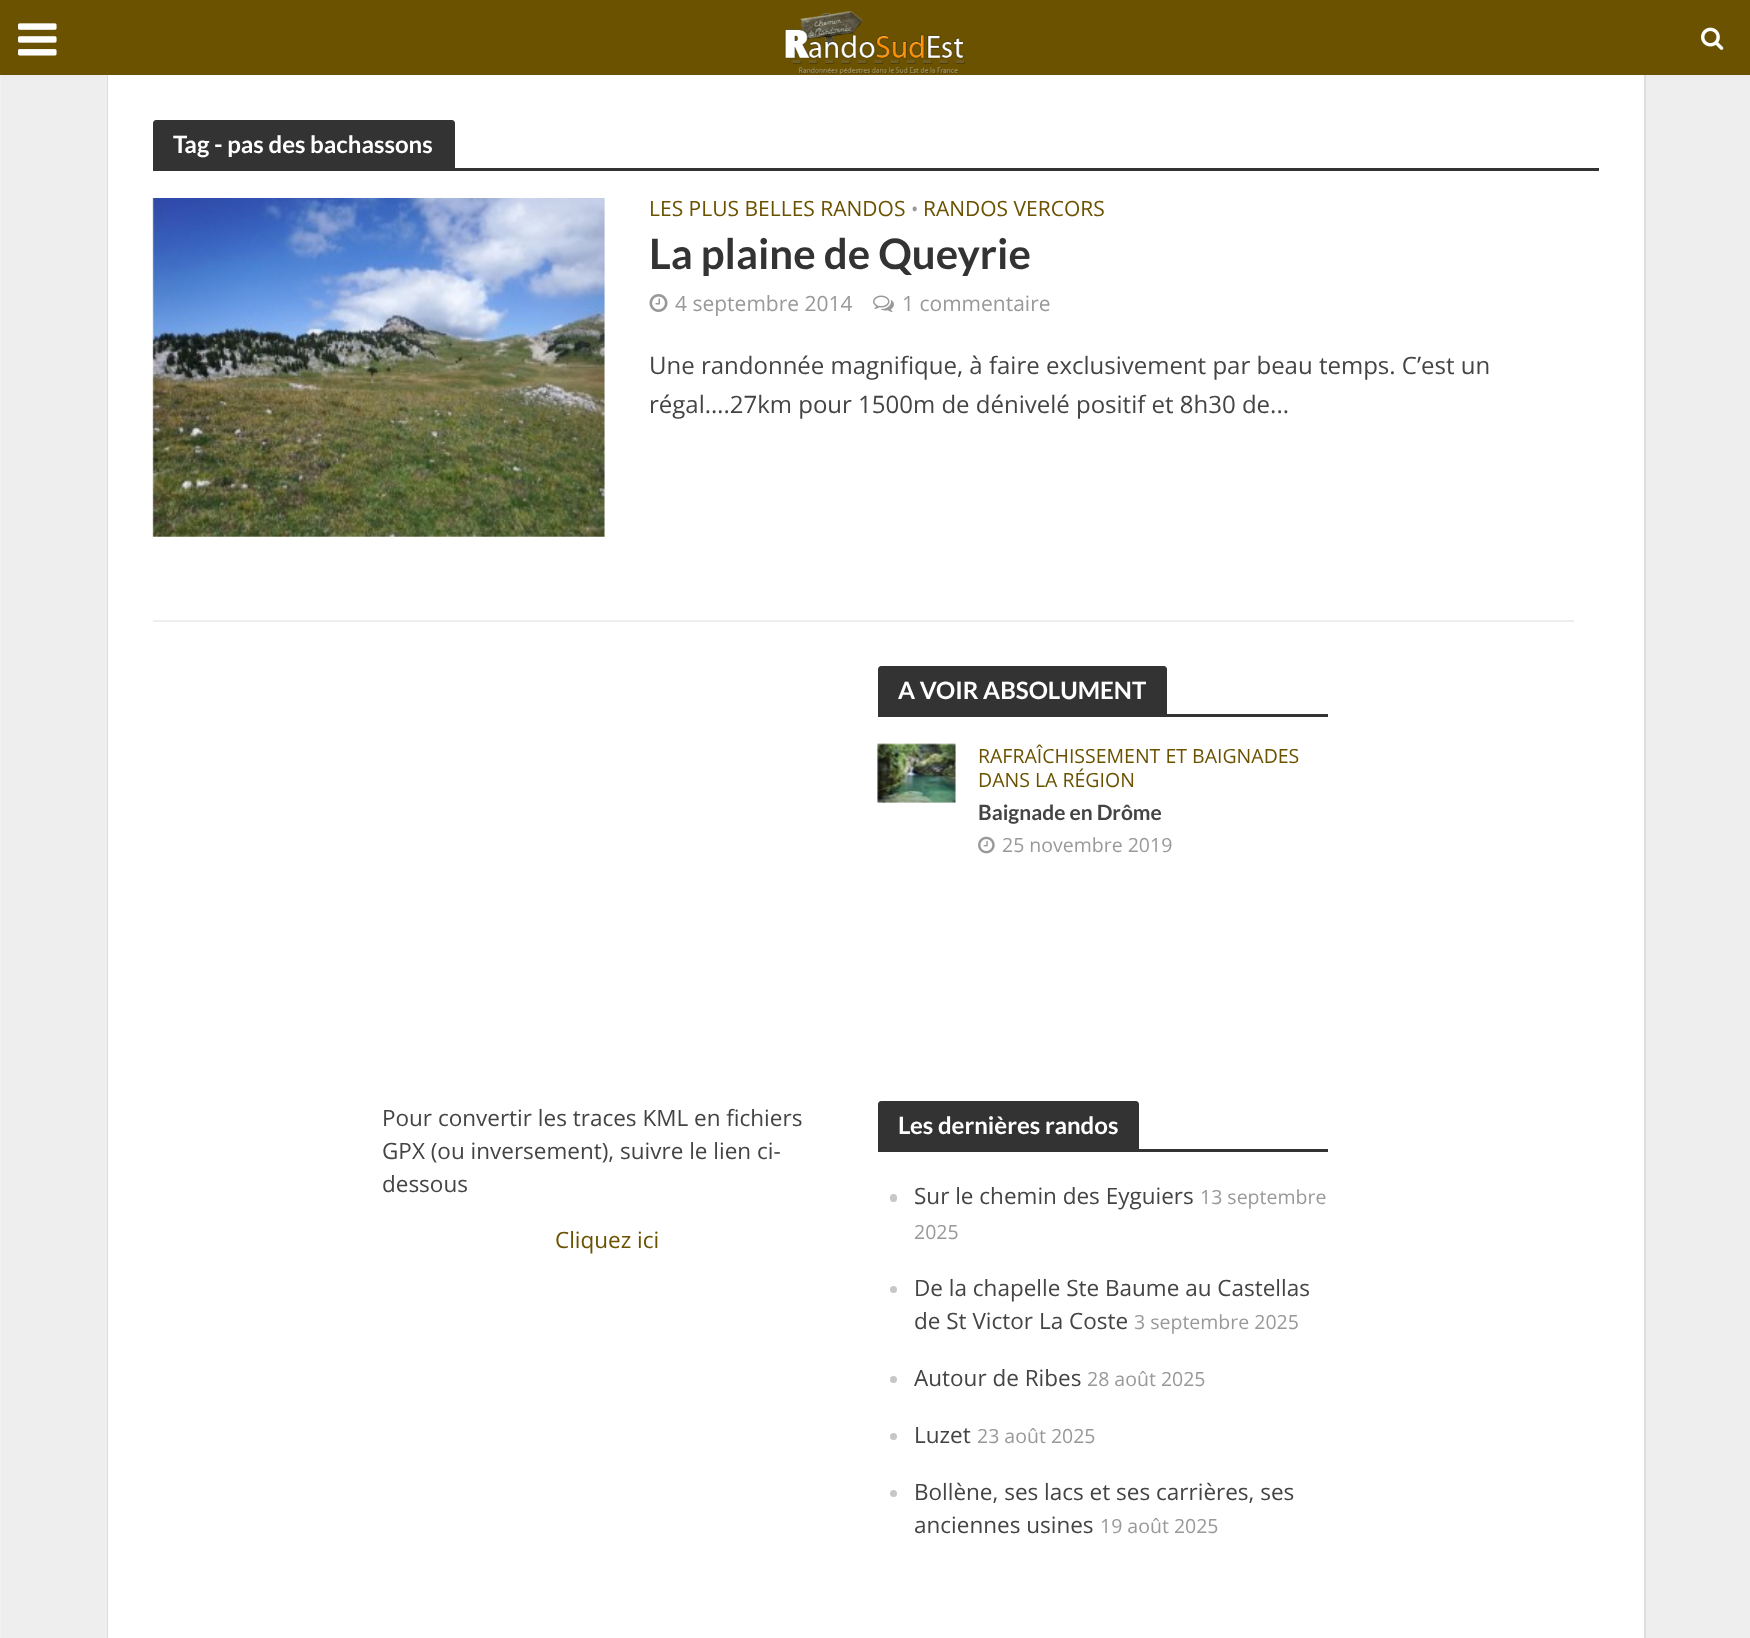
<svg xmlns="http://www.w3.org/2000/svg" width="1750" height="1638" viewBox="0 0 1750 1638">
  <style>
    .t1 { font: bold 24px Lato; fill: #fff; }
    .t2 { font: 21px Open Sans; fill: #6b5200; }
    .t3 { font: 19.5px Open Sans; fill: #999; }
    .t4 { font: bold 42px Lato; fill: #333; }
    .t5 { font: 21px Open Sans; fill: #999; }
    .t6 { font: 24px Open Sans; fill: #444; }
    .t7 { font: 19.5px Open Sans; fill: #6b5200; }
    .t8 { font: bold 21px Lato; fill: #444; }
    .t9 { font: 22.5px Open Sans; fill: #444; }
    .t10 { font: 22.5px Open Sans; fill: #6b5200; }
  </style>
  <rect width="100%" height="100%" fill="#eee"/>
  <rect x="108" y="75" width="1537" height="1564" fill="none" stroke="#ddd" stroke-width="2"/>
  <rect x="0" y="0" width="1750" height="75" fill="#6b5200"/>
  <image x="18" y="23" width="39" height="33" href="images/1.png"/>
  <image x="784" y="10" width="181" height="65" href="images/2.png"/>
  <image x="1701" y="27" width="23" height="23" href="images/3.png"/>
  <rect x="0" y="75" width="1" height="1563" fill="#f1f1f1"/>
  <rect x="108" y="75" width="1536" height="1563" fill="#fff"/>
  <path d="M156 120H452C453.5 120 455 121.5 455 123V168H153V123C153 121.5 154.5 120 156 120Z" fill="#333"/>
  <text x="173" y="153" class="t1">Tag - pas des bachassons</text>
  <rect x="153" y="168" width="1446" height="3" fill="#333"/>
  <rect x="153" y="198" width="452" height="339" fill="#f3f3f3"/>
  <image x="152" y="198" width="453" height="339" href="images/4.png"/>
  <text x="649" y="216" class="t2">LES PLUS BELLES RANDOS</text>
  <text x="911" y="216" class="t3">•</text>
  <text x="923" y="216" class="t2">RANDOS VERCORS</text>
  <text x="649" y="269" class="t4">La plaine de Queyrie</text>
  <image x="649" y="294" width="19" height="18" href="images/5.png"/>
  <text x="675" y="311" class="t5">4 septembre 2014</text>
  <image x="873" y="295" width="21" height="17" href="images/6.png"/>
  <text x="902" y="311" class="t5">1 commentaire</text>
  <text x="649" y="374" class="t6">Une randonnée magnifique, à faire exclusivement par beau temps. C’est un</text>
  <text x="649" y="413" class="t6">régal….27km pour 1500m de dénivelé positif et 8h30 de...</text>
  <rect x="153" y="620" width="1421" height="2" fill="#eee"/>
  <path d="M881 666H1164C1165.5 666 1167 667.5 1167 669V714H878V669C878 667.5 879.5 666 881 666Z" fill="#333"/>
  <text x="898" y="699" class="t1">A VOIR ABSOLUMENT</text>
  <rect x="878" y="714" width="450" height="3" fill="#333"/>
  <rect x="878" y="744" width="78" height="59" fill="#f2f2f2"/>
  <image x="877" y="743" width="79" height="60" href="images/7.png"/>
  <text x="978" y="763" class="t7">RAFRAÎCHISSEMENT ET BAIGNADES</text>
  <text x="978" y="787" class="t7">DANS LA RÉGION</text>
  <text x="978" y="820" class="t8">Baignade en Drôme</text>
  <image x="978" y="836" width="17" height="18" href="images/8.png"/>
  <text x="1002" y="852" class="t3">25 novembre 2019</text>
  <text x="382" y="1126" class="t9">Pour convertir les traces KML en fichiers</text>
  <text x="382" y="1159" class="t9">GPX (ou inversement), suivre le lien ci-</text>
  <text x="382" y="1192" class="t9">dessous</text>
  <text x="555" y="1248" class="t10">Cliquez ici</text>
  <path d="M881 1101H1136C1137.5 1101 1139 1102.5 1139 1104V1149H878V1104C878 1102.5 879.5 1101 881 1101Z" fill="#333"/>
  <text x="898" y="1134" class="t1">Les dernières randos</text>
  <rect x="878" y="1149" width="450" height="3" fill="#333"/>
  <rect x="890" y="1194" width="7" height="8" rx="3.5" fill="#c7c7c7"/>
  <text x="914" y="1204" class="t9">Sur le chemin des Eyguiers</text>
  <text x="1200" y="1204" class="t3">13 septembre</text>
  <text x="914" y="1239" class="t3">2025</text>
  <circle cx="893.5" cy="1289.5" r="3.5" fill="#c7c7c7"/>
  <text x="914" y="1296" class="t9">De la chapelle Ste Baume au Castellas</text>
  <text x="914" y="1329" class="t9">de St Victor La Coste</text>
  <text x="1134" y="1329" class="t3">3 septembre 2025</text>
  <circle cx="893.5" cy="1379.5" r="3.5" fill="#c7c7c7"/>
  <text x="914" y="1386" class="t9">Autour de Ribes</text>
  <text x="1087" y="1386" class="t3">28 août 2025</text>
  <circle cx="893.5" cy="1436.5" r="3.5" fill="#c7c7c7"/>
  <text x="914" y="1443" class="t9">Luzet</text>
  <text x="977" y="1443" class="t3">23 août 2025</text>
  <circle cx="893.5" cy="1493.5" r="3.5" fill="#c7c7c7"/>
  <text x="914" y="1500" class="t9">Bollène, ses lacs et ses carrières, ses</text>
  <text x="914" y="1533" class="t9">anciennes usines</text>
  <text x="1100" y="1533" class="t3">19 août 2025</text>
</svg>
